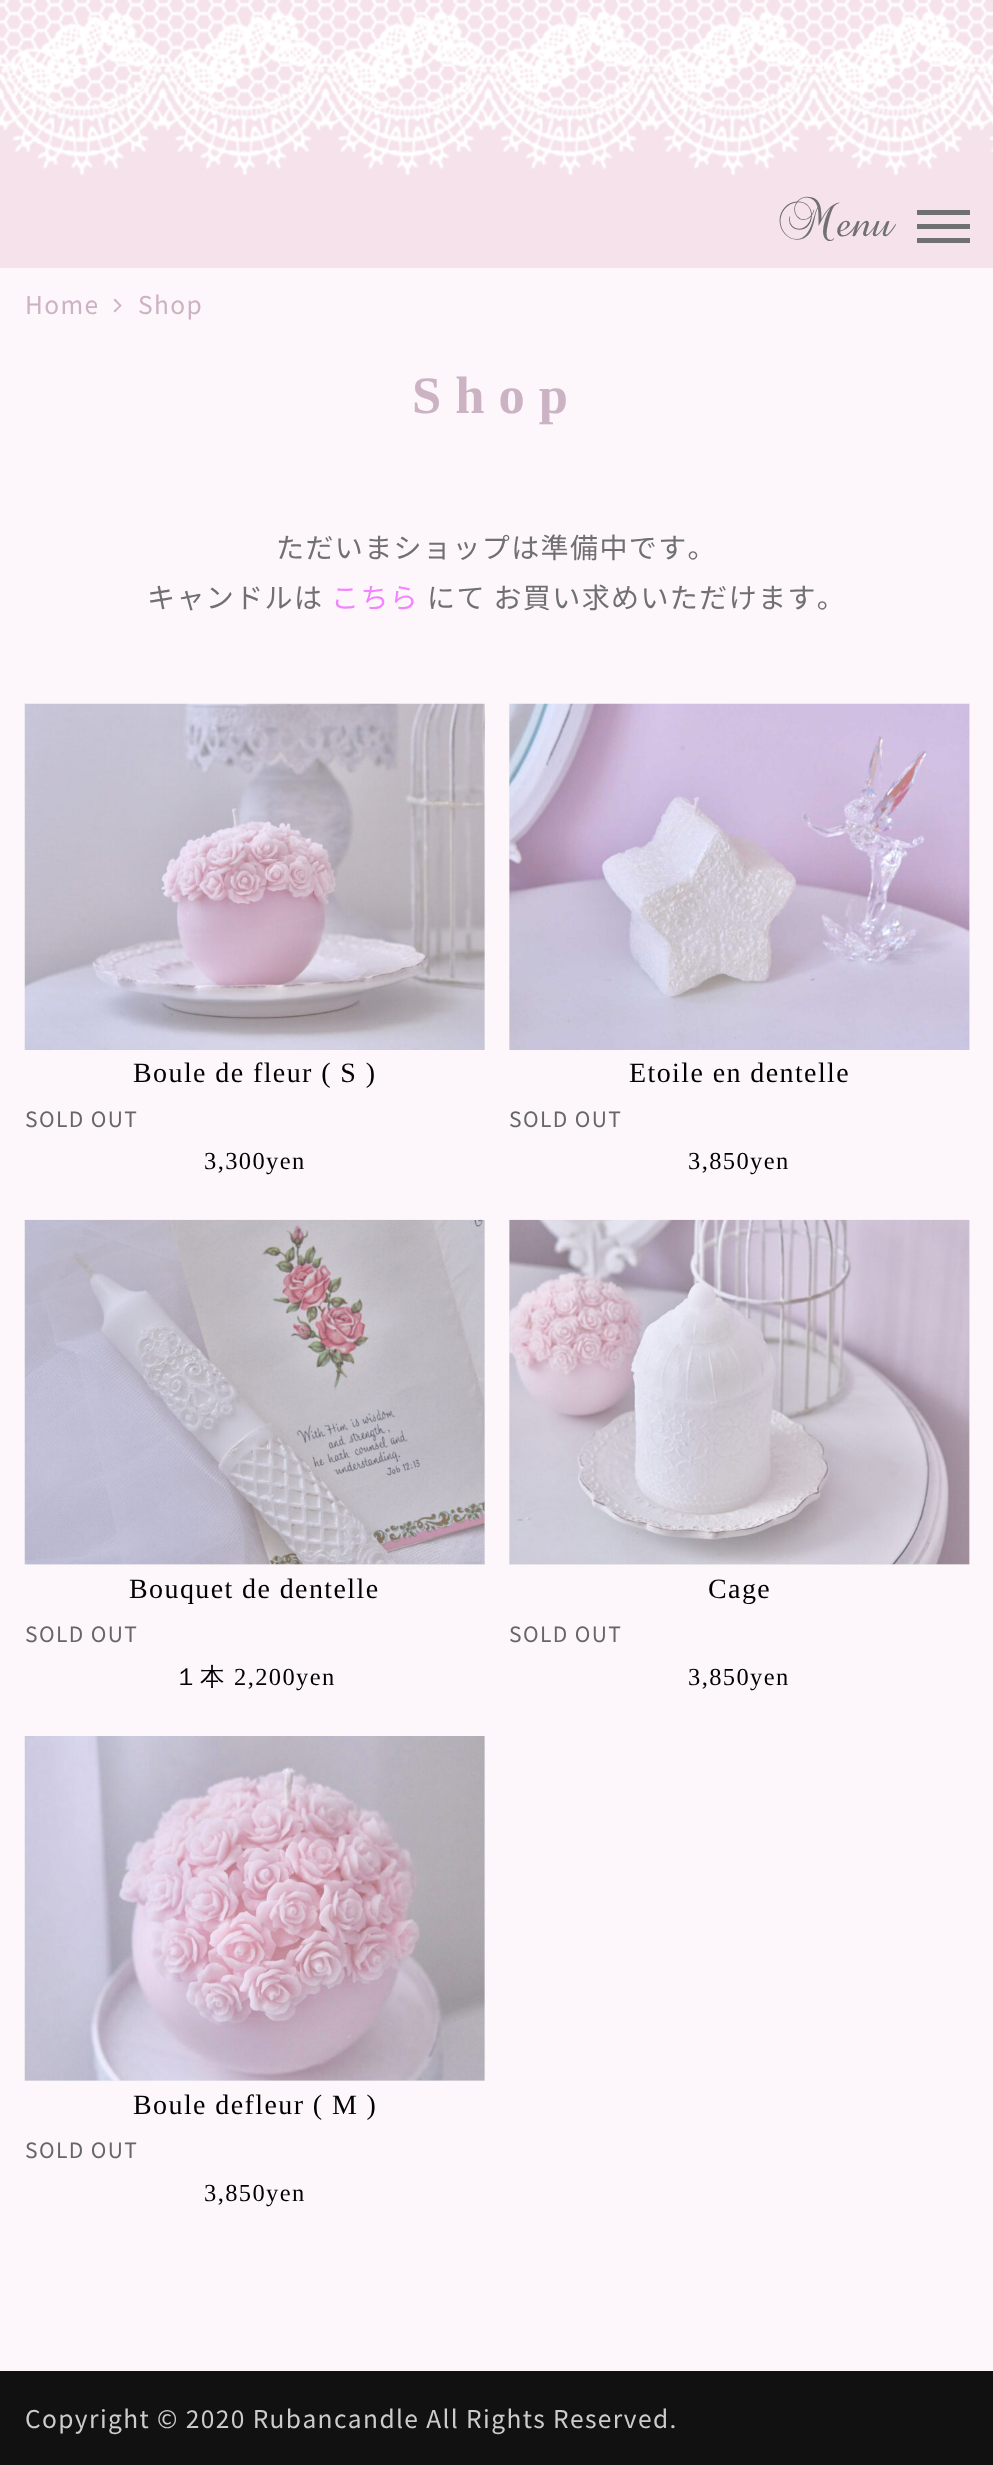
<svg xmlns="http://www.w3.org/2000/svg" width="993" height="2465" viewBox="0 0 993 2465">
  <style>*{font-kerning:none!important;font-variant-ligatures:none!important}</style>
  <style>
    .t1 { font: 44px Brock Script; fill: #707070; }
    .t2 { font: 100 24.5px Noto Sans JP; letter-spacing: 1.4px; fill: #ccb3c4; }
    .t3 { font: bold 52.5px Liberation Serif; letter-spacing: 14px; fill: #ccb3c4; }
    .t4 { font: 100 28px Noto Sans JP; letter-spacing: 1.4px; fill: #707070; }
    .t5 { font: 100 28px Noto Sans JP; letter-spacing: 1.4px; fill: #f285ff; }
    .t6 { font: 28px Liberation Serif; letter-spacing: 1.4px; fill: #000; }
    .t7 { font: 100 21px Noto Sans JP; letter-spacing: 1.4px; fill: #666; }
    .t8 { font: 24.5px Liberation Serif; letter-spacing: 1.4px; fill: #000; }
    .t9 { font: 500 24.5px WenQuanYi Zen Hei; letter-spacing: 1.4px; fill: #000; }
    .t10 { font: 100 24.5px Noto Sans JP; letter-spacing: 1.4px; fill: #ccc; }
  </style>
  <rect width="100%" height="100%" fill="#fdf6fa"/>
  <rect x="0" y="0" width="993" height="268" fill="#f5e2ea"/>
  <image x="0" y="0" width="993" height="175" href="images/1.png"/>
  <text x="777" y="236" class="t1">Menu</text>
  <rect x="917" y="210" width="53" height="5" fill="#707070"/>
  <rect x="917" y="224" width="53" height="5" fill="#707070"/>
  <rect x="917" y="238" width="53" height="5" fill="#707070"/>
  <text x="25" y="314" class="t2">Home</text>
  <path d="M115 298.5L121.5 305.5L120.5 307L113.5 300Z" fill="#ccb3c4"/>
  <path d="M120.5 304.5L121.5 305.5L115 312.5L113.5 311Z" fill="#ccb3c4"/>
  <text x="138" y="314" class="t2">Shop</text>
  <text x="412" y="413" class="t3">Shop</text>
  <text x="276" y="558" class="t4">ただいまショップは準備中です。</text>
  <text x="147" y="608" class="t4">キャンドルは</text>
  <text x="331" y="608" class="t5">こちら</text>
  <text x="427" y="608" class="t4">にて お買い求めいただけます。</text>
  <rect x="484" y="704" width="1" height="346" fill="#eee"/>
  <image x="24" y="703" width="461" height="347" href="images/2.png"/>
  <text x="133" y="1082" class="t6">Boule de fleur ( S )</text>
  <text x="25" y="1127" class="t7">SOLD OUT</text>
  <text x="204" y="1169" class="t8">3,300yen</text>
  <rect x="509" y="704" width="461" height="346" fill="#eee"/>
  <image x="509" y="703" width="461" height="347" href="images/3.png"/>
  <text x="629" y="1082" class="t6">Etoile en dentelle</text>
  <text x="509" y="1127" class="t7">SOLD OUT</text>
  <text x="688" y="1169" class="t8">3,850yen</text>
  <rect x="25" y="1220" width="460" height="345" fill="#eee"/>
  <image x="24" y="1219" width="461" height="346" href="images/4.png"/>
  <text x="129" y="1598" class="t6">Bouquet de dentelle</text>
  <text x="25" y="1642" class="t7">SOLD OUT</text>
  <text x="174" y="1685" class="t9">１本</text>
  <text x="234" y="1685" class="t8">2,200yen</text>
  <rect x="509" y="1220" width="461" height="345" fill="#eee"/>
  <image x="509" y="1219" width="461" height="346" href="images/5.png"/>
  <text x="708" y="1598" class="t6">Cage</text>
  <text x="509" y="1642" class="t7">SOLD OUT</text>
  <text x="688" y="1685" class="t8">3,850yen</text>
  <rect x="25" y="1736" width="460" height="345" fill="#eee"/>
  <image x="24" y="1736" width="461" height="345" href="images/6.png"/>
  <text x="133" y="2114" class="t6">Boule defleur ( M )</text>
  <text x="25" y="2158" class="t7">SOLD OUT</text>
  <text x="204" y="2201" class="t8">3,850yen</text>
  <rect x="0" y="2371" width="993" height="94" fill="#111"/>
  <text x="25" y="2428" class="t10">Copyright © 2020 Rubancandle All Rights Reserved.</text>
</svg>
